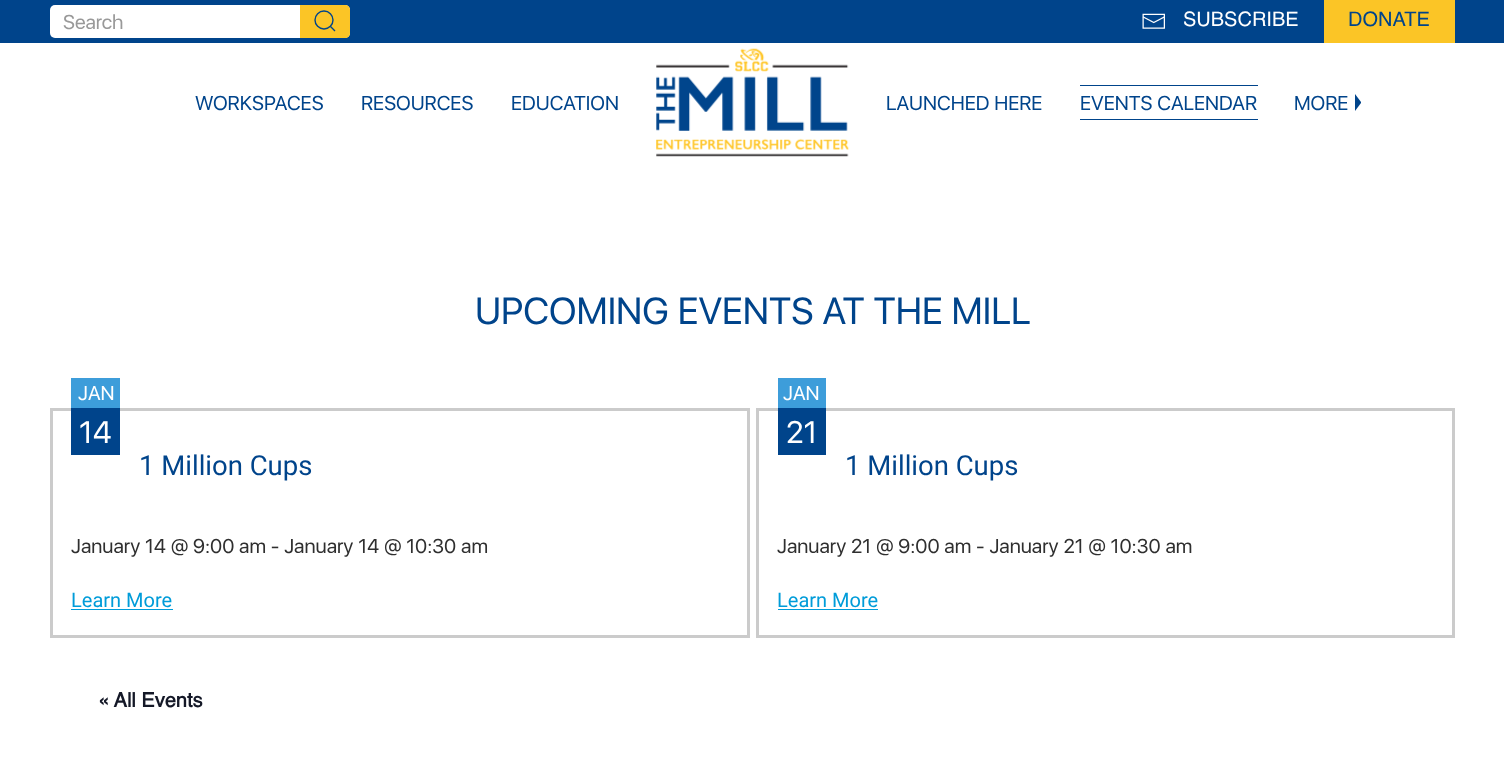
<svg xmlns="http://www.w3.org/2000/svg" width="1504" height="762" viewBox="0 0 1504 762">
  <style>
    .t1 { font: 20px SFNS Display; fill: #999; }
    .t2 { font: 20px Helvetica; fill: #fff; }
    .t3 { font: 20px Helvetica; fill: #00448b; }
    .t4 { font: 20px SFNS Display; fill: #00448b; }
    .t5 { font: 37.5px SFNS Display; fill: #00448b; }
    .t6 { font: 20px SFNS Display; fill: #fff; }
    .t7 { font: 31px SFNS Display; fill: #fff; }
    .t8 { font: 27.5px Roboto; fill: #00448b; }
    .t9 { font: 20px SFNS Display; fill: #2f2f2f; }
    .t10 { font: 20px Roboto; fill: #009cd9; }
    .t11 { font: bold 20px Helvetica; fill: #141827; }
  </style>
  <rect width="100%" height="100%" fill="#fff"/>
  <rect x="0" y="0" width="1504" height="43" fill="#00448b"/>
  <rect x="50" y="5" width="300" height="33" rx="5" fill="#fff"/>
  <text x="63" y="29" class="t1">Search</text>
  <path d="M300 5H345C348 5 350 7 350 10V33C350 36 348 38 345 38H300Z" fill="#fbc526"/>
  <circle cx="324" cy="20" r="9" fill="none" stroke="#00448b" stroke-width="1.4"/>
  <path d="M330 26L335 31Z" fill="none" stroke="#00448b" stroke-width="1.4"/>
  <image x="1142" y="13" width="23" height="16" href="images/1.png"/>
  <text x="1183" y="26" class="t2">SUBSCRIBE</text>
  <rect x="1324" y="0" width="131" height="43" fill="#fbc526"/>
  <text x="1348" y="26" class="t3">DONATE</text>
  <text x="195" y="110" class="t4">WORKSPACES</text>
  <text x="361" y="110" class="t4">RESOURCES</text>
  <text x="511" y="110" class="t4">EDUCATION</text>
  <image x="656" y="48" width="193" height="109" href="images/2.png"/>
  <text x="886" y="110" class="t4">LAUNCHED HERE</text>
  <rect x="1080" y="85" width="178" height="1" fill="#00448b"/>
  <text x="1080" y="110" class="t4">EVENTS CALENDAR</text>
  <rect x="1080" y="119" width="178" height="1" fill="#00448b"/>
  <text x="1294" y="110" class="t4">MORE</text>
  <path d="M1355 94V111L1361 103V102Z" fill="#00448b"/>
  <text x="475" y="324" class="t5">UPCOMING EVENTS AT THE MILL</text>
  <rect x="51.5" y="409.5" width="697" height="227" fill="none" stroke="#cbcbcb" stroke-width="3"/>
  <rect x="71" y="408" width="49" height="47" fill="#00448b"/>
  <rect x="71" y="378" width="49" height="30" fill="#3d9dda"/>
  <text x="78" y="400" class="t6">JAN</text>
  <text x="79" y="443" class="t7">14</text>
  <text x="139" y="475" class="t8">1 Million Cups</text>
  <text x="71" y="553" class="t9">January 14 @ 9:00 am - January 14 @ 10:30 am</text>
  <text x="71" y="607" class="t10">Learn More</text>
  <rect x="71" y="609" width="102" height="1" fill="#009cd9"/>
  <rect x="757.5" y="409.5" width="696" height="227" fill="none" stroke="#cbcbcb" stroke-width="3"/>
  <rect x="778" y="408" width="48" height="47" fill="#00448b"/>
  <rect x="778" y="378" width="48" height="30" fill="#3d9dda"/>
  <text x="783" y="400" class="t6">JAN</text>
  <text x="786" y="443" class="t7">21</text>
  <text x="845" y="475" class="t8">1 Million Cups</text>
  <text x="777" y="553" class="t9">January 21 @ 9:00 am - January 21 @ 10:30 am</text>
  <text x="777" y="607" class="t10">Learn More</text>
  <rect x="778" y="609" width="100" height="1" fill="#009cd9"/>
  <text x="98" y="707" class="t11">« All Events</text>
</svg>
